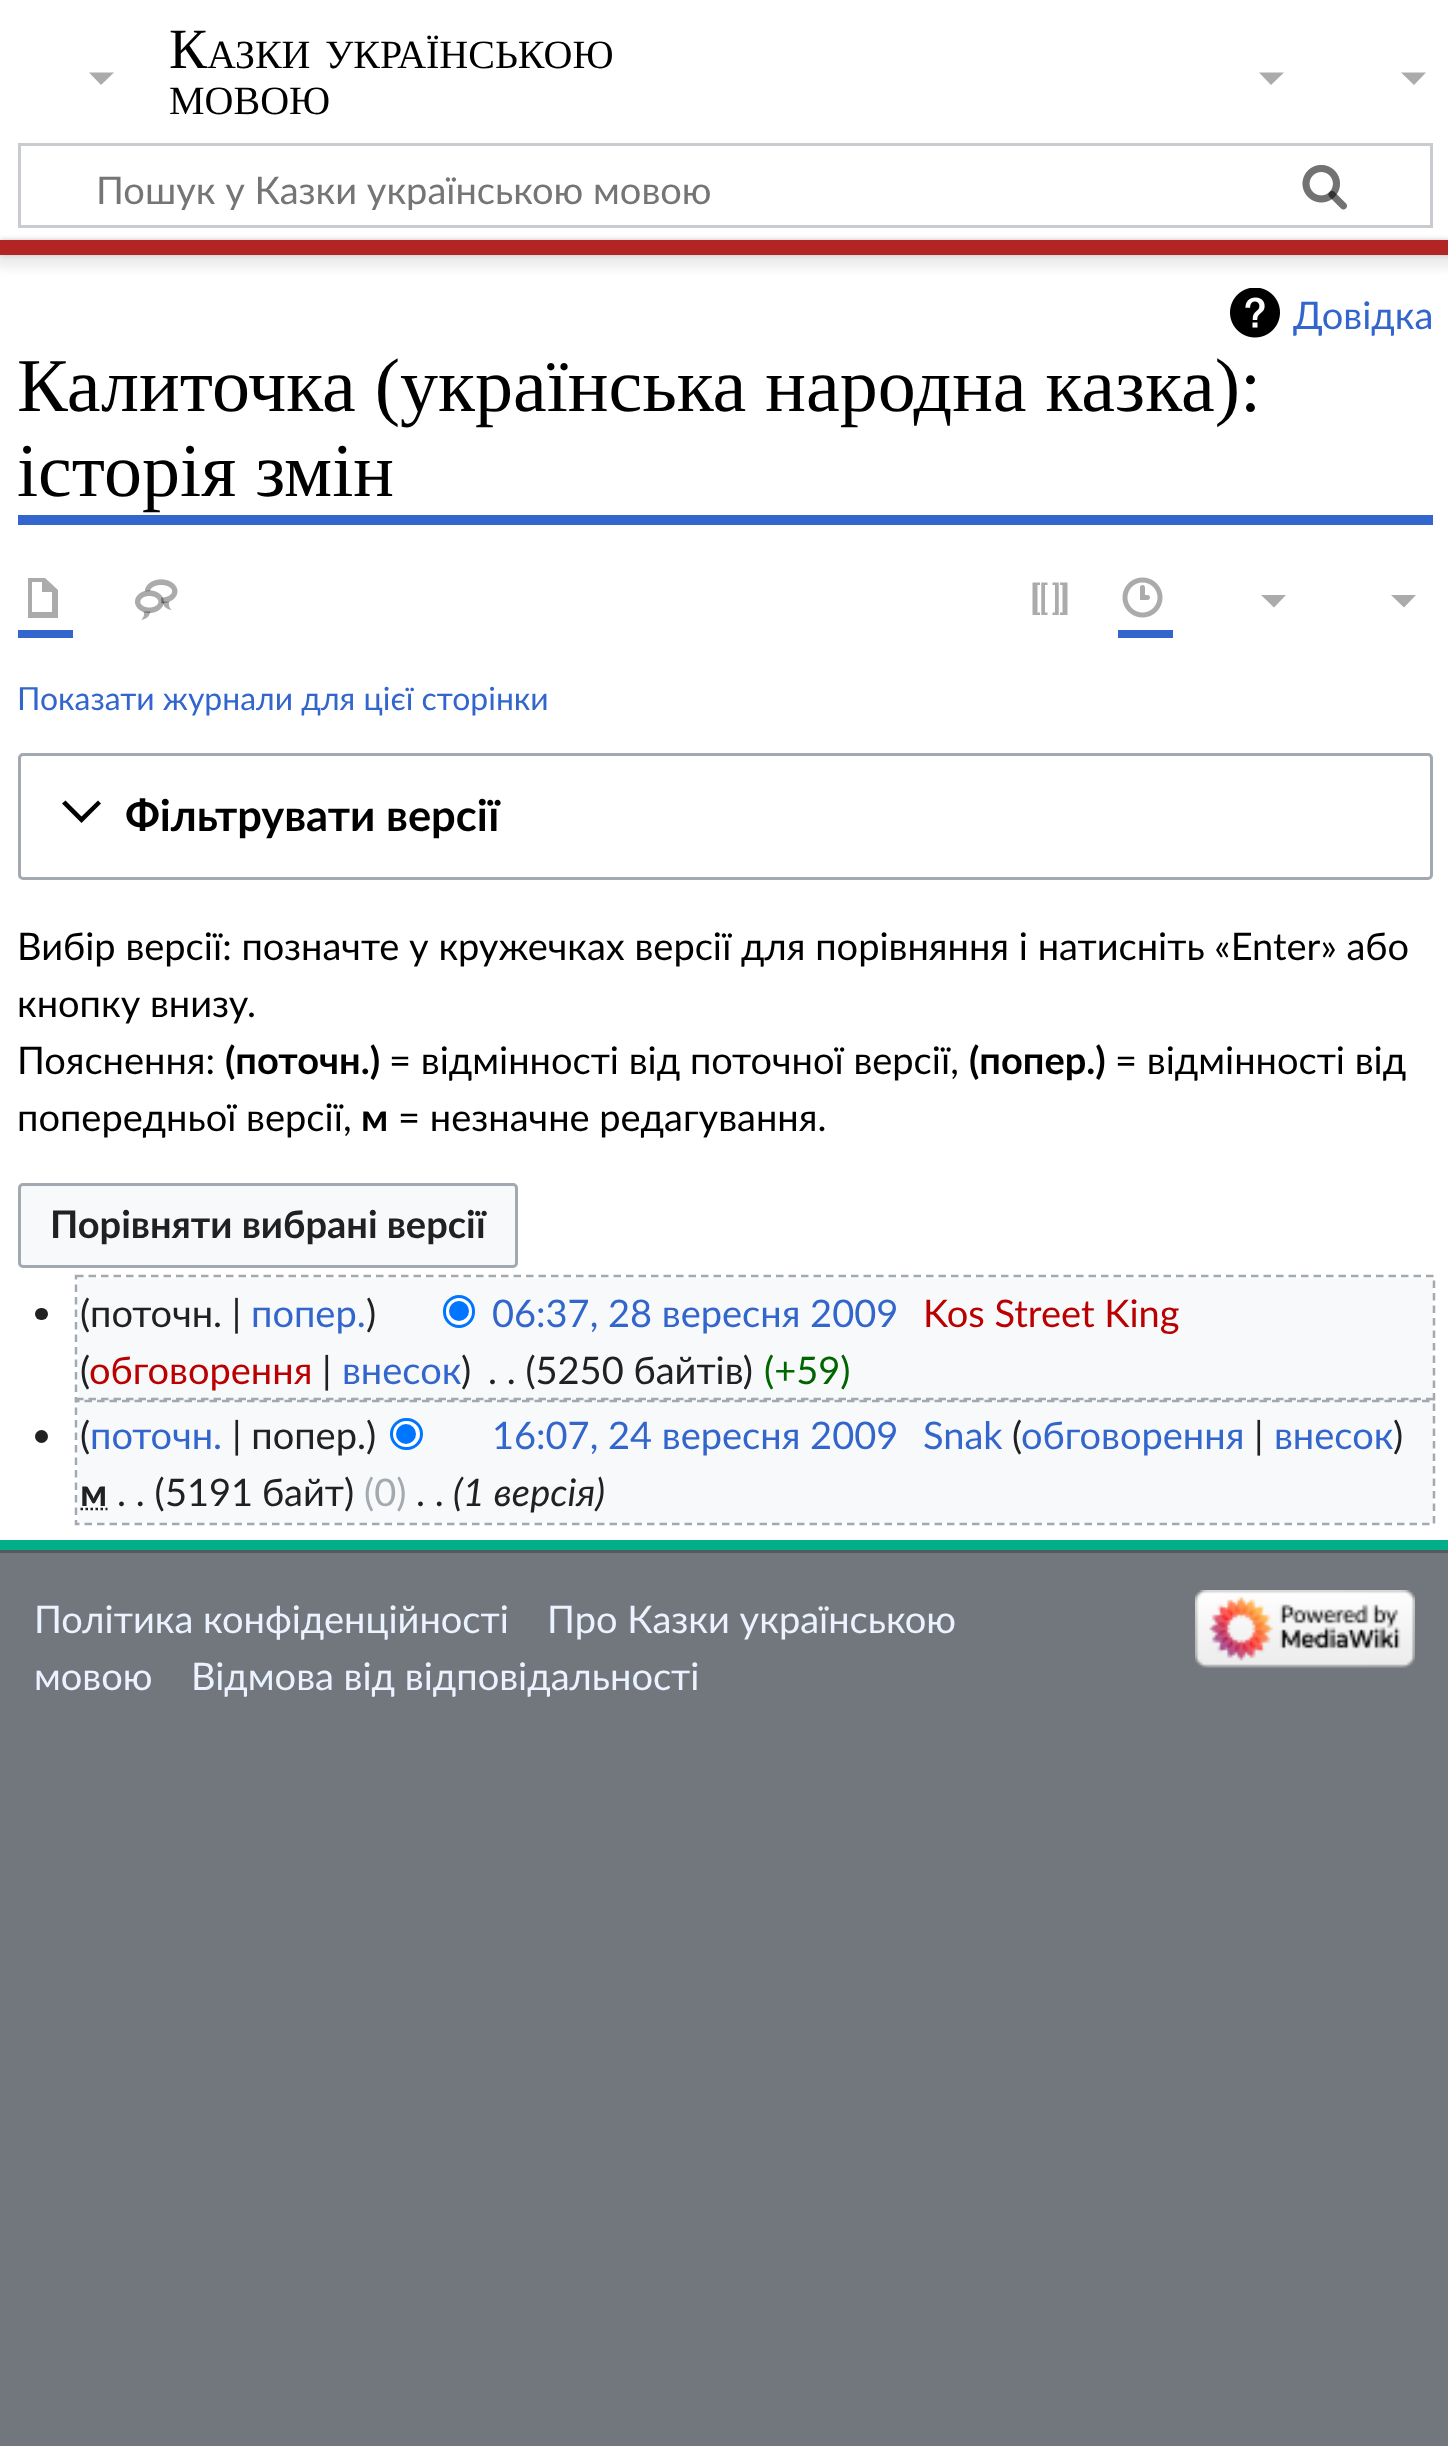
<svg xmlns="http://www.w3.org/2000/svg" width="1448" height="2446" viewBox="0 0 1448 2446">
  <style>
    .t1 { font: 57px Liberation Serif; fill: #000; }
    .t2 { font: 40px Liberation Serif; fill: #000; }
    .t3 { font: 38px Lato; fill: #757575; }
    .t4 { font: 38px Lato; fill: #36c; }
    .t5 { font: 76px Liberation Serif; fill: #000; }
    .t6 { font: 31.9px Lato; fill: #36c; }
    .t7 { font: bold 43.5px Lato; fill: #000; }
    .t8 { font: 38px Lato; fill: #000; }
    .t9 { font: bold 38px Lato; fill: #000; }
    .t10 { font: bold 38px Lato; fill: #202122; }
    .t11 { font: 38px Lato; fill: #202122; }
    .t12 { font: 38px Lato; fill: #ba0000; }
    .t13 { font: 38px Lato; fill: #006400; }
    .t14 { font: italic 38px Lato; fill: #202122; }
    .t15 { font: 38px Lato; fill: #a2a9b1; }
    .t16 { font: 38px Lato; fill: #eaf3ff; }
  </style>
  <defs>
    <clipPath id="clip1"><rect x="95" y="165" width="1155" height="45"/></clipPath>
  </defs>
  <rect width="100%" height="100%" fill="#72777d"/>
  <rect x="0" y="0" width="1448" height="240" fill="#fff"/>
  <text x="169" y="68" class="t1">К</text>
  <text x="207" y="68" class="t2">АЗКИ</text>
  <text x="325" y="68" class="t2">УКРАЇНСЬКОЮ</text>
  <text x="169" y="114" class="t2">МОВОЮ</text>
  <path d="M1426 72.5L1414 85L1401 72.5Z" fill="#ababab"/>
  <rect x="19.5" y="144.5" width="1412" height="82" fill="none" stroke="#c8ccd1" stroke-width="3"/>
  <image x="1302" y="165" width="45" height="45" href="images/1.png"/>
  <g clip-path="url(#clip1)">
    <text x="96" y="204" class="t3">Пошук у Казки українською мовою</text>
  </g>
  <image x="1302" y="165" width="45" height="45" href="images/2.png"/>
  <rect x="0" y="255" width="1448" height="1285" fill="#fff"/>
  <rect x="0" y="240" width="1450" height="15" fill="#00000033" filter="blur(2.5px)"/>
  <rect x="-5" y="243" width="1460" height="25" fill="#00000012" filter="blur(4px)"/>
  <rect x="0" y="240" width="1448" height="15" fill="#b32424"/>
  <rect x="0" y="1540" width="1448" height="10" fill="#00af89"/>
  <path d="M114 72.5L101 85L89 72.5Z" fill="#ababab"/>
  <path d="M1284 72.5L1271 85L1259 72.5Z" fill="#ababab"/>
  <image x="1230" y="288" width="50" height="50" href="images/3.png"/>
  <text x="1293" y="329" class="t4">Довідка</text>
  <rect x="18" y="515" width="1415" height="10" fill="#36c"/>
  <text x="17" y="411" class="t5">Калиточка (українська народна казка):</text>
  <text x="17" y="496" class="t5">історія змін</text>
  <rect x="18" y="630" width="55" height="8" fill="#36c"/>
  <path d="M28 578V618H58V590L45 578ZM32 582H42V592H52V612H32Z" fill="#ababab"/>
  <image x="135" y="579" width="43" height="41" href="images/4.png"/>
  <image x="1032" y="582" width="36" height="33" href="images/5.png"/>
  <rect x="1118" y="630" width="55" height="8" fill="#36c"/>
  <image x="1122" y="577" width="41" height="41" href="images/6.png"/>
  <path d="M1286 595L1274 607.5L1261 595Z" fill="#ababab"/>
  <path d="M1416 595L1404 607.5L1391 595Z" fill="#ababab"/>
  <text x="17" y="710" class="t6">Показати журнали для цієї сторінки</text>
  <rect x="19.5" y="754.5" width="1412" height="124" rx="3.5" fill="none" stroke="#a2a9b1" stroke-width="3"/>
  <path d="M98 800.5L81.5 816.5L65.5 800.5L62 803.5L81.5 823L101 803.5Z" fill="#000"/>
  <text x="125" y="831" class="t7">Фільтрувати версії</text>
  <text x="17" y="960" class="t8">Вибір версії: позначте у кружечках версії для порівняння і натисніть «Enter» або</text>
  <text x="17" y="1017" class="t8">кнопку внизу.</text>
  <text x="17" y="1074" class="t8">Пояснення:</text>
  <text x="225" y="1074" class="t9">(поточн.)</text>
  <text x="389" y="1074" class="t8">= відмінності від поточної версії,</text>
  <text x="969" y="1074" class="t9">(попер.)</text>
  <text x="1115" y="1074" class="t8">= відмінності від</text>
  <text x="17" y="1131" class="t8">попередньої версії,</text>
  <text x="361" y="1131" class="t9">м</text>
  <text x="398" y="1131" class="t8">= незначне редагування.</text>
  <rect x="19.5" y="1184.5" width="497" height="82" rx="3.5" fill="#f8f9fa" stroke="#a2a9b1" stroke-width="3"/>
  <text x="50" y="1238" class="t10">Порівняти вибрані версії</text>
  <rect x="78" y="1278" width="1355" height="245" fill="#f8f9fa"/>
  <text x="80" y="1327" class="t11">(</text>
  <text x="90" y="1327" class="t11">поточн. |</text>
  <text x="251" y="1327" class="t4">попер.</text>
  <text x="366" y="1327" class="t11">)</text>
  <rect x="444.5" y="1296.5" width="29" height="30" rx="14.5" fill="#fff" stroke="#0075ff" stroke-width="3"/>
  <circle cx="459" cy="1311" r="10" fill="#0075ff"/>
  <text x="923" y="1327" class="t12">Kos Street King</text>
  <text x="80" y="1384" class="t11">(</text>
  <text x="89" y="1384" class="t12">обговорення</text>
  <text x="322" y="1384" class="t11">|</text>
  <text x="342" y="1384" class="t4">внесок</text>
  <text x="461" y="1384" class="t11">)</text>
  <text x="492" y="1327" class="t4">06:37, 28 вересня 2009</text>
  <text x="488" y="1384" class="t11">. . (5250 байтів)</text>
  <text x="764" y="1384" class="t13">(+59)</text>
  <path d="M76 1276H1434V1401H76Z" fill="none" stroke="#a2a9b1" stroke-width="2.5" stroke-dasharray="7.5 5"/>
  <rect x="35" y="1308" width="13" height="12" rx="6" fill="#202122"/>
  <text x="80" y="1449" class="t11">(</text>
  <text x="90" y="1449" class="t4">поточн.</text>
  <text x="232" y="1449" class="t11">| попер.)</text>
  <rect x="391.5" y="1419.5" width="30" height="29" rx="14.5" fill="#fff" stroke="#0075ff" stroke-width="3"/>
  <circle cx="406" cy="1434" r="10" fill="#0075ff"/>
  <text x="492" y="1449" class="t4">16:07, 24 вересня 2009</text>
  <text x="923" y="1449" class="t4">Snak</text>
  <text x="1012" y="1449" class="t11">(</text>
  <text x="1021" y="1449" class="t4">обговорення</text>
  <text x="1254" y="1449" class="t11">|</text>
  <text x="1274" y="1449" class="t4">внесок</text>
  <text x="1393" y="1449" class="t11">)</text>
  <text x="80" y="1506" class="t10">м</text>
  <path d="M80.5 1509H107.5" fill="none" stroke="#202122" stroke-width="2.5" stroke-dasharray="2.5 2.5"/>
  <text x="117" y="1506" class="t11">. . (</text>
  <text x="165" y="1506" word-spacing="-1" class="t11">5191 байт</text>
  <text x="344" y="1506" class="t11">)</text>
  <text x="416" y="1506" class="t11">. .</text>
  <text x="453" y="1506" class="t14">(1 версія)</text>
  <path d="M76 1399H1434V1524H76Z" fill="none" stroke="#a2a9b1" stroke-width="2.5" stroke-dasharray="7.5 5"/>
  <circle cx="41.5" cy="1436.5" r="6.5" fill="#202122"/>
  <text x="364" y="1506" class="t15">(0)</text>
  <rect x="0" y="1550" width="1448" height="3" fill="#54595d"/>
  <text x="34" y="1633" class="t16">Політика конфіденційності</text>
  <text x="547" y="1633" class="t16">Про Казки українською</text>
  <text x="34" y="1690" class="t16">мовою</text>
  <text x="191" y="1690" class="t16">Відмова від відповідальності</text>
  <image x="1195" y="1590" width="220" height="78" href="images/7.png"/>
</svg>
